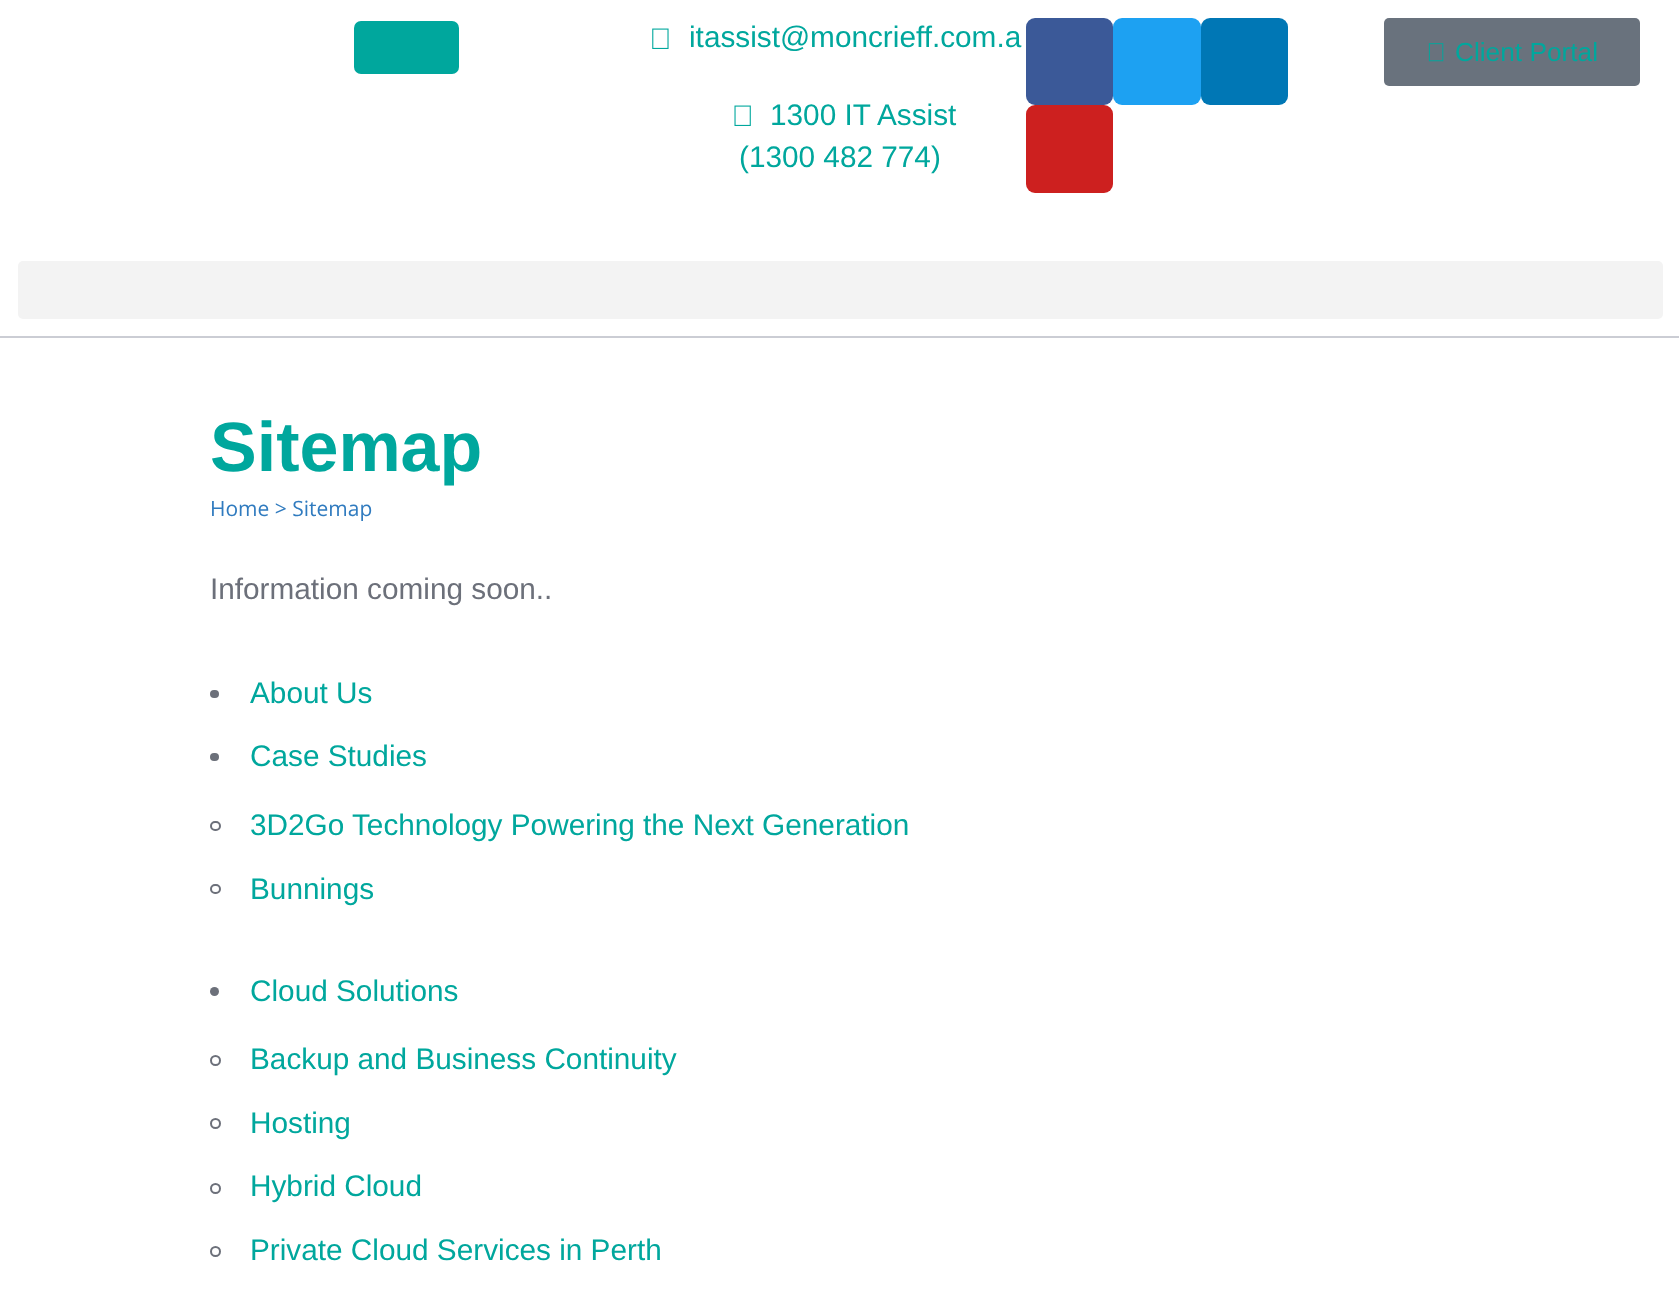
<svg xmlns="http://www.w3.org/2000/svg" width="1679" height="1302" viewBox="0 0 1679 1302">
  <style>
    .t1 { font: 29.75px Liberation Sans; fill: #00a79d; }
    .t2 { font: 26.25px Liberation Sans; fill: #00a79d; }
    .t3 { font: bold 70px Liberation Sans; fill: #00a79d; }
    .t4 { font: 21px Open Sans; fill: #307bbf; }
    .t5 { font: 29.75px Liberation Sans; fill: #6c707a; }
  </style>
  <rect width="100%" height="100%" fill="#fff"/>
  <rect x="354" y="21" width="105" height="53" rx="7" fill="#00a79d"/>
  <image x="652" y="28" width="17" height="21" href="images/1.png"/>
  <text x="689" y="47" class="t1">itassist@moncrieff.com.a</text>
  <image x="734" y="105" width="17" height="21" href="images/2.png"/>
  <text x="770" y="125" class="t1">1300 IT Assist</text>
  <text x="739" y="167" class="t1">(1300 482 774)</text>
  <rect x="1026" y="18" width="87" height="87" rx="9" fill="#3b5998"/>
  <rect x="1113" y="18" width="88" height="87" rx="9" fill="#1da1f2"/>
  <rect x="1201" y="18" width="87" height="87" rx="9" fill="#0077b5"/>
  <rect x="1026" y="105" width="87" height="88" rx="9" fill="#cd201f"/>
  <rect x="1384" y="18" width="256" height="68" rx="5" fill="#69727d"/>
  <image x="1428" y="43" width="16" height="19" href="images/3.png"/>
  <text x="1455" y="61" class="t2">Client Portal</text>
  <rect x="18" y="261" width="1645" height="58" rx="5" fill="#f3f3f3"/>
  <rect x="0" y="336" width="1679" height="2" fill="#cbcdd4"/>
  <text x="210" y="471" class="t3">Sitemap</text>
  <text x="210" y="516" class="t4">Home &gt; Sitemap</text>
  <text x="210" y="599" class="t5">Information coming soon..</text>
  <rect x="210" y="690" width="9" height="8" rx="4" fill="#6c707a"/>
  <text x="250" y="703" class="t1">About Us</text>
  <rect x="210" y="753" width="9" height="8" rx="4" fill="#6c707a"/>
  <text x="250" y="766" class="t1">Case Studies</text>
  <rect x="211" y="822" width="9" height="8" rx="4" fill="none" stroke="#6c707a" stroke-width="2"/>
  <text x="250" y="835" class="t1">3D2Go Technology Powering the Next Generation</text>
  <rect x="211" y="885" width="9" height="8" rx="4" fill="none" stroke="#6c707a" stroke-width="2"/>
  <text x="250" y="899" class="t1">Bunnings</text>
  <circle cx="214.5" cy="991.5" r="4.5" fill="#6c707a"/>
  <text x="250" y="1001" class="t1">Cloud Solutions</text>
  <circle cx="215.5" cy="1060.5" r="4.5" fill="none" stroke="#6c707a" stroke-width="2"/>
  <text x="250" y="1069" class="t1">Backup and Business Continuity</text>
  <circle cx="215.5" cy="1123.5" r="4.5" fill="none" stroke="#6c707a" stroke-width="2"/>
  <text x="250" y="1133" class="t1">Hosting</text>
  <circle cx="215.5" cy="1188.5" r="4.5" fill="none" stroke="#6c707a" stroke-width="2"/>
  <text x="250" y="1196" class="t1">Hybrid Cloud</text>
  <circle cx="215.5" cy="1251.5" r="4.5" fill="none" stroke="#6c707a" stroke-width="2"/>
  <text x="250" y="1260" class="t1">Private Cloud Services in Perth</text>
</svg>
